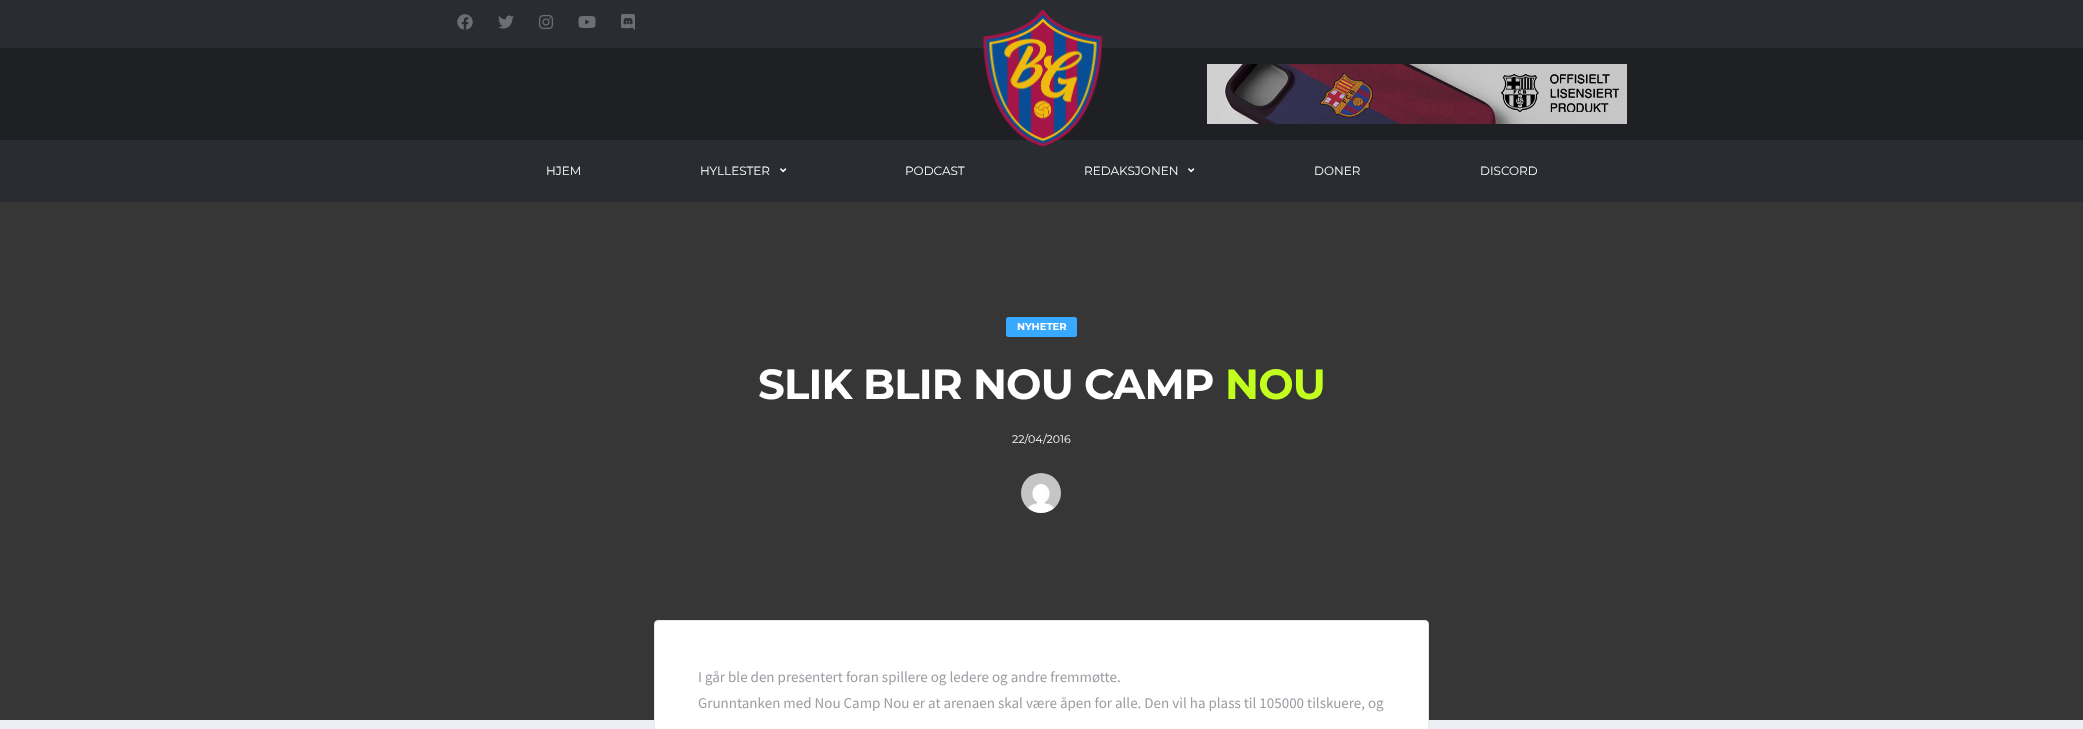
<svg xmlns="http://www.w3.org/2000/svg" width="2083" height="729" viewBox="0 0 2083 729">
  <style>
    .t1 { font: 12px Montserrat; fill: #fff; }
    .t2 { font: bold 10px Montserrat; fill: #fff; }
    .t3 { font: bold 42px Montserrat; letter-spacing: -0.8px; fill: #fff; }
    .t4 { font: bold 42px Montserrat; letter-spacing: -0.8px; fill: #c2ff1f; }
    .t5 { font: 11px Montserrat; fill: #fff; }
    .t6 { font: 15px Source Sans Pro; fill: #9a9da2; }
  </style>
  <rect width="100%" height="100%" fill="#edeff4"/>
  <rect x="0" y="48" width="2083" height="92" fill="#1e2024"/>
  <rect x="0" y="0" width="2083" height="48" fill="#292c31"/>
  <image x="457" y="14" width="16" height="16" href="images/1.png"/>
  <image x="498" y="15" width="16" height="14" href="images/2.png"/>
  <image x="539" y="15" width="14" height="14" href="images/3.png"/>
  <image x="578" y="16" width="18" height="12" href="images/4.png"/>
  <image x="621" y="14" width="14" height="16" href="images/5.png"/>
  <rect x="0" y="140" width="2083" height="62" fill="#292c31"/>
  <image x="983" y="10" width="120" height="137" href="images/6.png"/>
  <image x="1207" y="64" width="420" height="60" href="images/7.png"/>
  <text x="546" y="175" class="t1">HJEM</text>
  <text x="700" y="175" class="t1">HYLLESTER</text>
  <image x="780" y="168" width="7" height="5" href="images/8.png"/>
  <text x="905" y="175" class="t1">PODCAST</text>
  <text x="1084" y="175" class="t1">REDAKSJONEN</text>
  <image x="1188" y="168" width="7" height="5" href="images/8.png"/>
  <text x="1314" y="175" class="t1">DONER</text>
  <text x="1480" y="175" class="t1">DISCORD</text>
  <rect x="0" y="202" width="2083" height="518" fill="#363636"/>
  <rect x="1006" y="317" width="71" height="20" rx="2.5" fill="#38a9ff"/>
  <text x="1017" y="330" class="t2">NYHETER</text>
  <text x="758" y="399" class="t3">SLIK BLIR NOU CAMP</text>
  <text x="1225" y="399" class="t4">NOU</text>
  <text x="1012" y="443" class="t5">22/04/2016</text>
  <image x="1021" y="473" width="40" height="40" href="images/9.png"/>
  <rect x="654.5" y="620.5" width="774" height="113" rx="3.5" fill="#fff" stroke="#e4e7ed"/>
  <text x="698" y="682" class="t6">I går ble den presentert foran spillere og ledere og andre fremmøtte.</text>
  <text x="698" y="708" class="t6">Grunntanken med Nou Camp Nou er at arenaen skal være åpen for alle. Den vil ha plass til 105000 tilskuere, og</text>
</svg>
